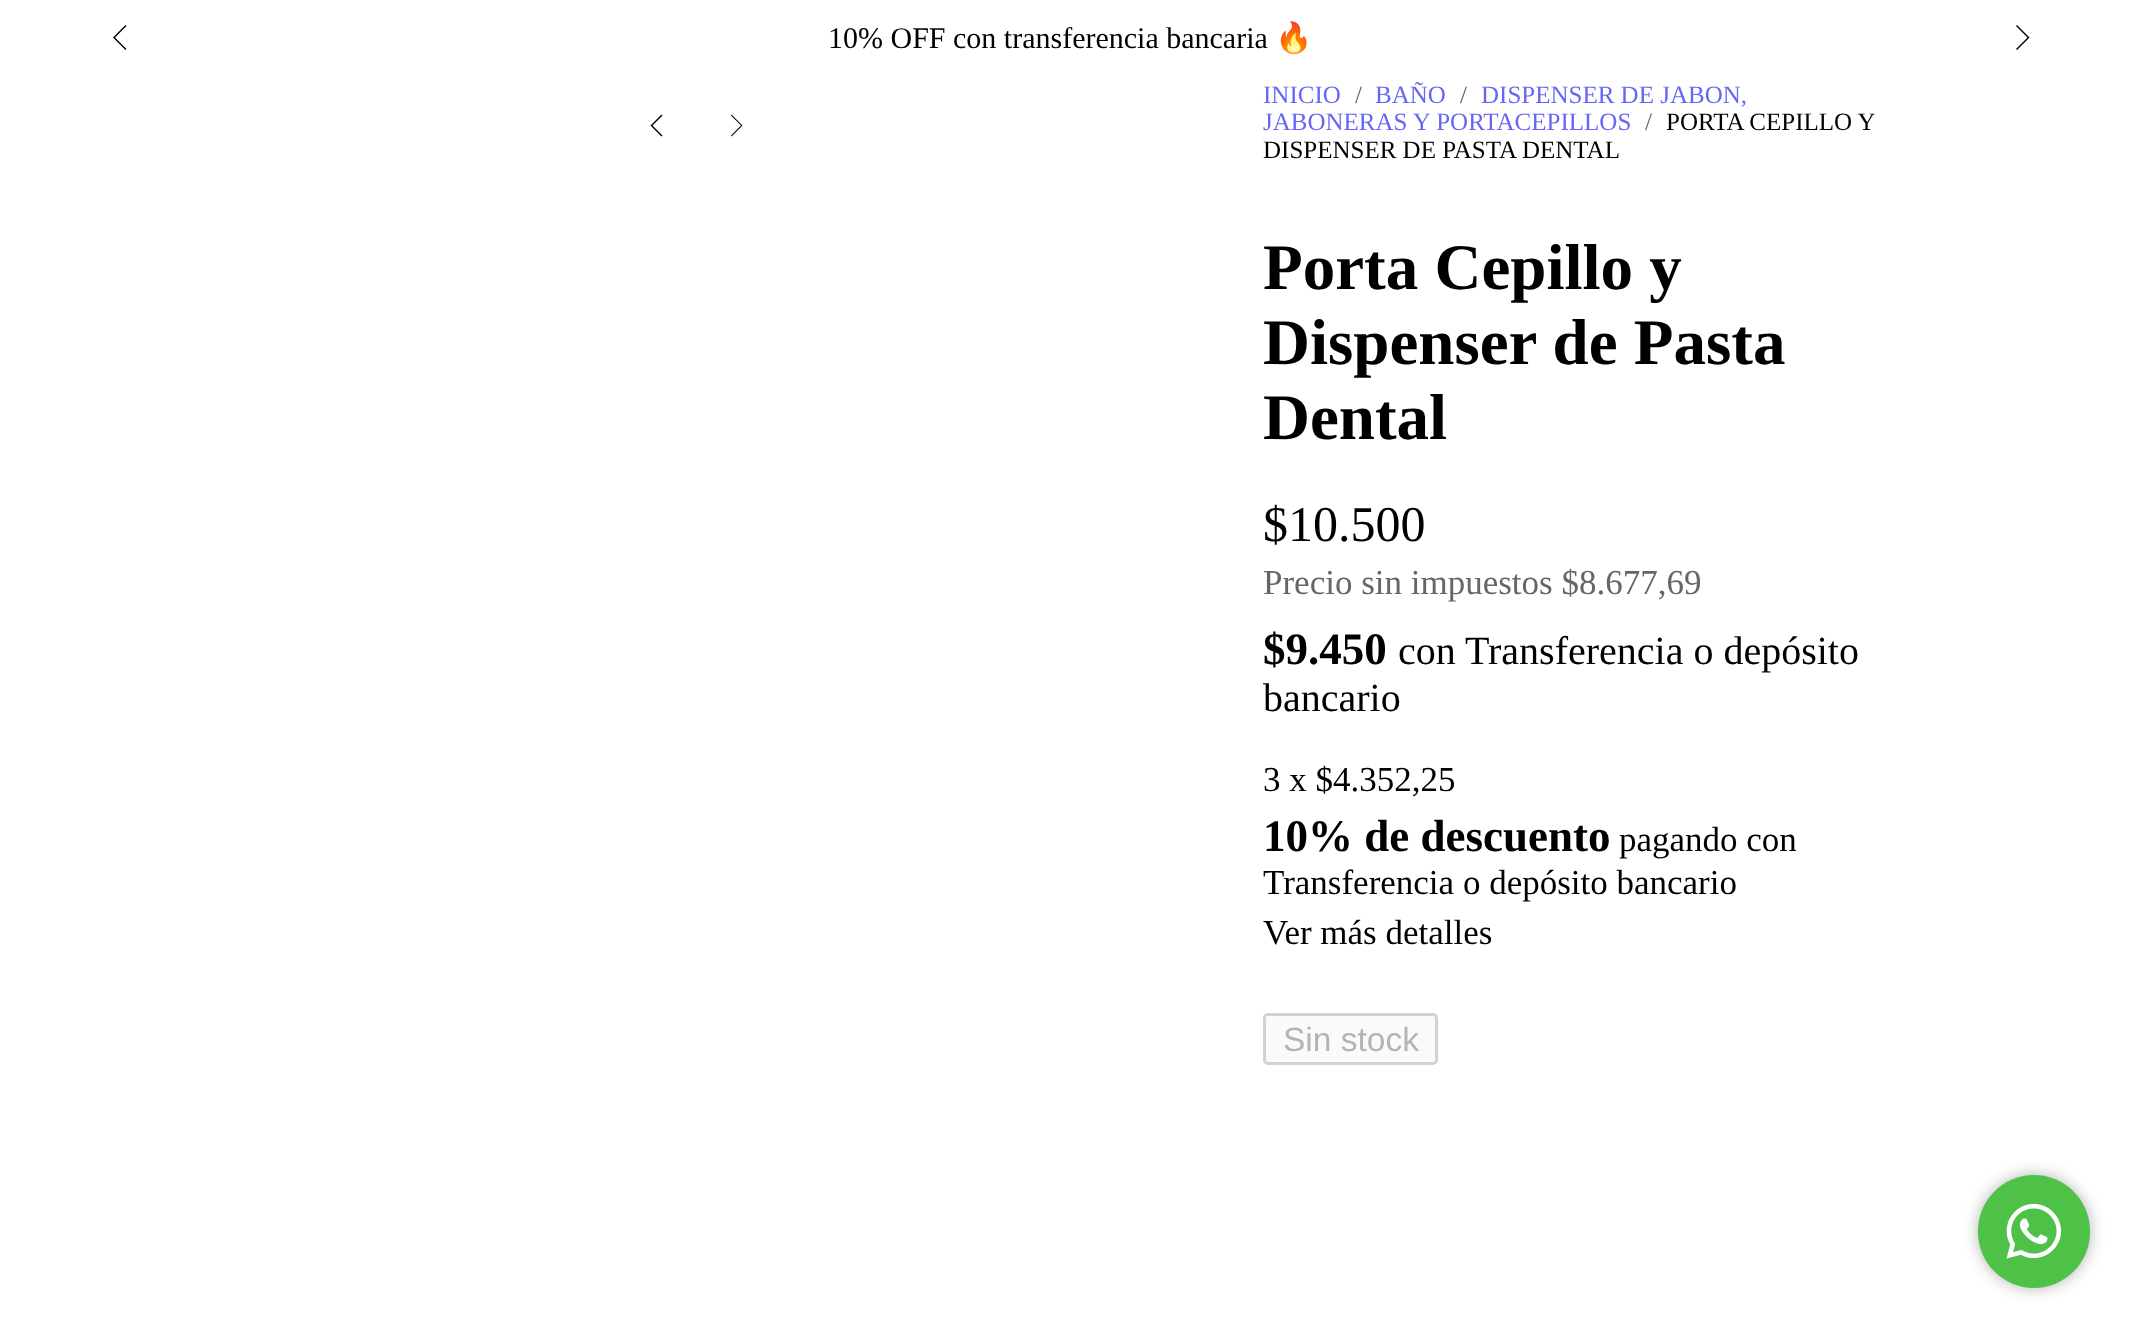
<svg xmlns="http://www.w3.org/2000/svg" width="2138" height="1325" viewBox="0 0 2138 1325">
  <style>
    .t1 { font: 30px Liberation Serif; fill: #000; }
    .t2 { font: 30px Noto Color Emoji; fill: #000; }
    .t3 { font: 25px Liberation Serif; fill: #6666f5; }
    .t4 { font: 25px Liberation Serif; fill: #666; }
    .t5 { font: 25px Liberation Serif; fill: #000; }
    .t6 { font: bold 65px Liberation Serif; fill: #000; }
    .t7 { font: 50px Liberation Serif; fill: #000; }
    .t8 { font: 35px Liberation Serif; fill: #666; }
    .t9 { font: bold 45px Liberation Serif; fill: #000; }
    .t10 { font: 40px Liberation Serif; fill: #000; }
    .t11 { font: 35px Liberation Serif; fill: #000; }
    .t12 { font: 33.5px Liberation Sans; fill: #b4b4b4; }
  </style>
  <rect width="100%" height="100%" fill="#fff"/>
  <path d="M126.5 49L125.5 50L113 37.5L125.5 25L126.5 26L115 37.5Z" fill="#000"/>
  <text x="828" y="48" class="t1">10% OFF con transferencia bancaria</text>
  <text x="1275" y="48" class="t2">🔥</text>
  <path d="M2027.5 37.5L2016 26L2017 25L2029.5 37.5L2017 50L2016 49Z" fill="#000"/>
  <path d="M662.5 135.5L661.5 136.5L650.5 125.5L661.5 114.5L662.5 115.5L652.5 125.5Z" fill="#000"/>
  <path d="M741 125.5L731 115.5L731.5 114.5L742.5 125.5L731.5 136.5L731 135.5Z" fill="#000"/>
  <text x="1263" y="103" class="t3">INICIO</text>
  <text x="1355" y="103" class="t4">/</text>
  <text x="1375" y="103" class="t3">BAÑO</text>
  <text x="1460" y="103" class="t4">/</text>
  <text x="1481" y="103" class="t3">DISPENSER DE JABON,</text>
  <text x="1263" y="130" class="t3">JABONERAS Y PORTACEPILLOS</text>
  <text x="1645" y="130" class="t4">/</text>
  <text x="1666" y="130" class="t5">PORTA CEPILLO Y</text>
  <text x="1263" y="158" class="t5">DISPENSER DE PASTA DENTAL</text>
  <text x="1263" y="289" class="t6">Porta Cepillo y</text>
  <text x="1263" y="364" class="t6">Dispenser de Pasta</text>
  <text x="1263" y="439" class="t6">Dental</text>
  <text x="1263" y="541" class="t7">$10.500</text>
  <text x="1263" y="594" class="t8">Precio sin impuestos $8.677,69</text>
  <text x="1263" y="664" class="t9">$9.450</text>
  <text x="1398" y="664" class="t10">con</text>
  <text x="1465" y="664" class="t10">Transferencia o depósito</text>
  <text x="1263" y="711" class="t10">bancario</text>
  <text x="1263" y="791" class="t11">3 x $4.352,25</text>
  <text x="1263" y="851" class="t9">10% de descuento</text>
  <text x="1619" y="851" class="t11">pagando con</text>
  <text x="1263" y="894" class="t11">Transferencia o depósito bancario</text>
  <text x="1263" y="944" class="t11">Ver más detalles</text>
  <rect x="1264.5" y="1014.5" width="172" height="49" rx="3.5" fill="#fafafa" stroke="#d2d2d2" stroke-width="3"/>
  <text x="1283" y="1051" class="t12">Sin stock</text>
  <rect x="1978" y="1175" width="112" height="113" rx="56" fill="#0000004d" filter="blur(7.5px)"/>
  <rect x="1978" y="1175" width="112" height="113" rx="56" fill="#4dc247"/>
  <image x="2006" y="1203" width="56" height="56" href="images/1.png"/>
</svg>
